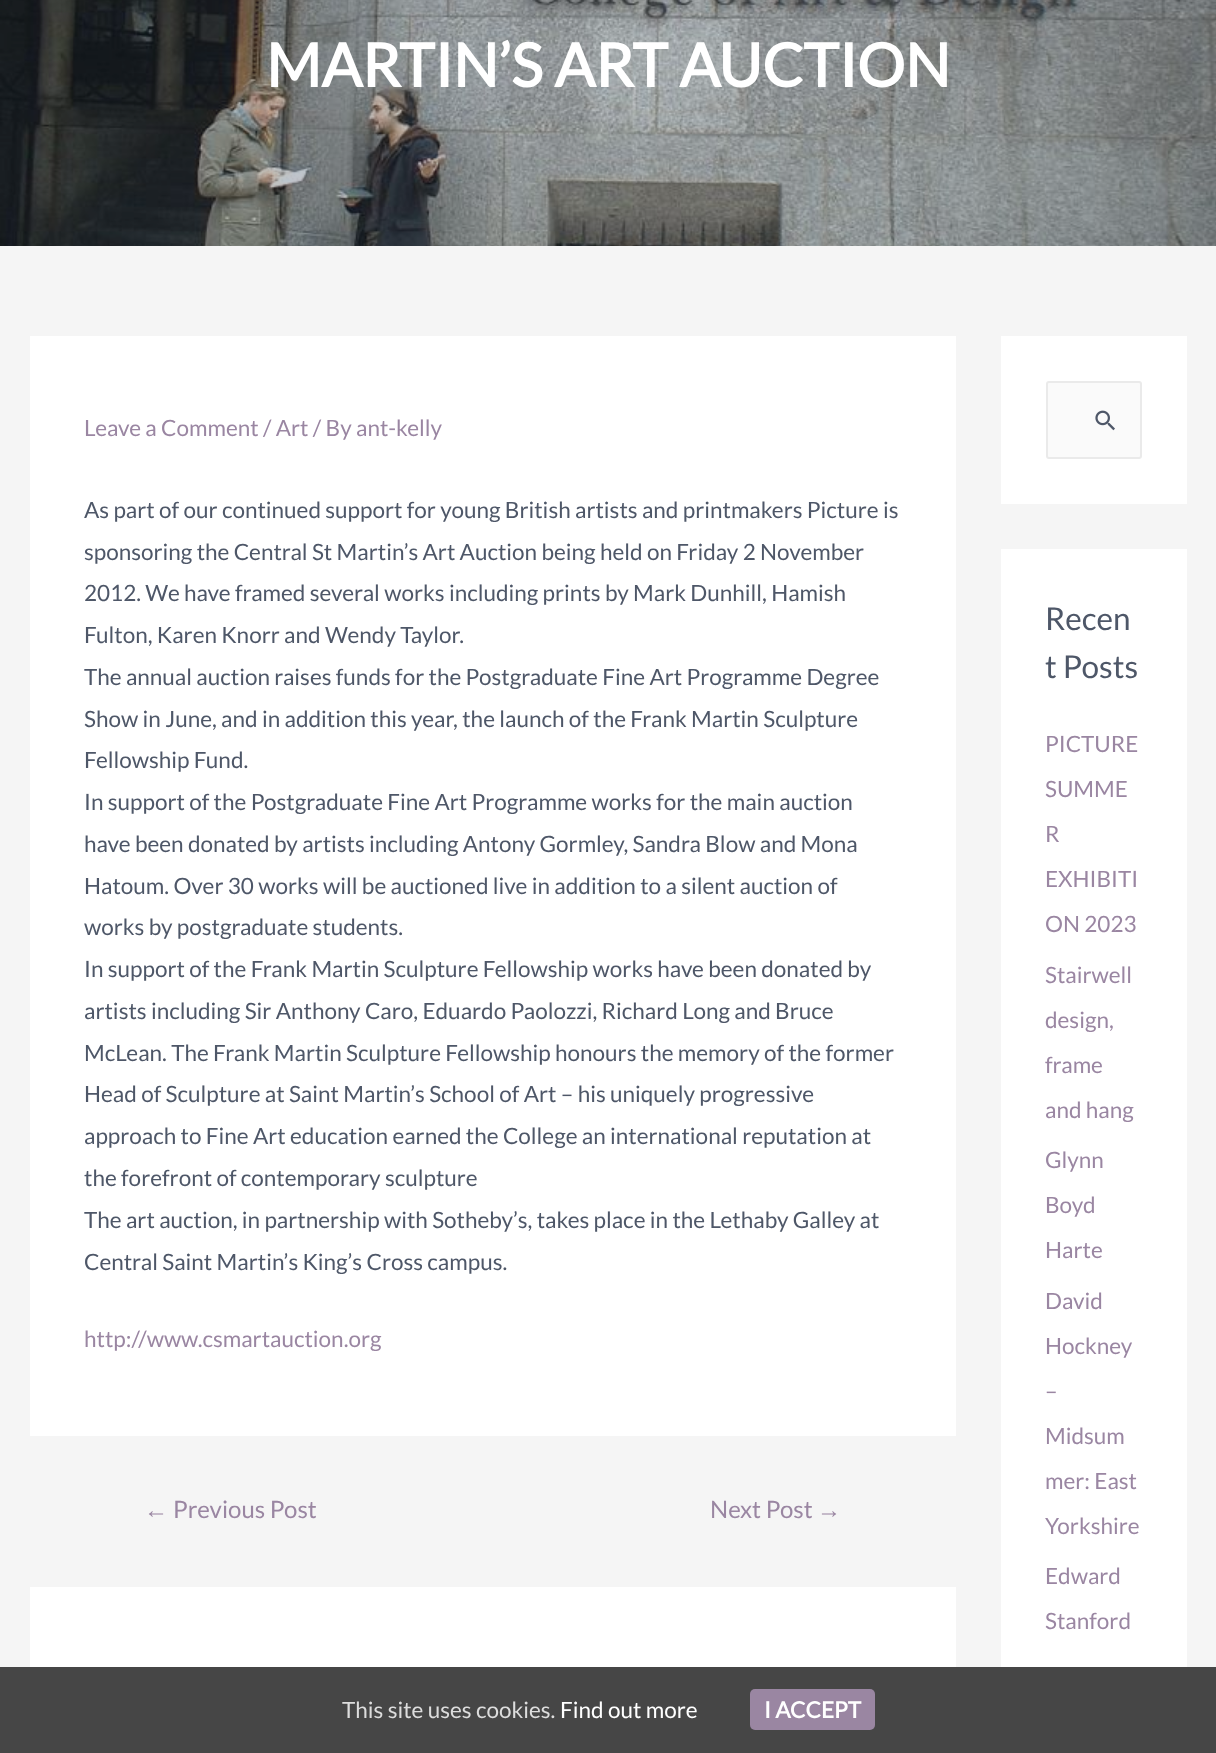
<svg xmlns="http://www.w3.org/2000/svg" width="1216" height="1753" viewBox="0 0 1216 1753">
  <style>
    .t1 { font: bold 60px Lato; fill: #fff; }
    .t2 { font: 22.5px Lato; fill: #9a86a2; }
    .t3 { font: 22.5px Lato; fill: #4e5768; }
    .t4 { font: 24px Liberation Sans; fill: #9a86a2; }
    .t5 { font: 24px Lato; fill: #9a86a2; }
    .t6 { font: 31.5px Lato; fill: #4e5768; }
    .t7 { font: 22.5px Lato; fill: #ddd; }
    .t8 { font: 22.5px Lato; fill: #fff; }
    .t9 { font: bold 22.5px Lato; fill: #fff; }
  </style>
  <rect width="100%" height="100%" fill="#f5f5f5"/>
  <image x="0" y="0" width="1216" height="246" href="images/1.png"/>
  <text x="266" y="87" class="t1">MARTIN’S ART AUCTION</text>
  <rect x="30" y="336" width="926" height="1100" fill="#fff"/>
  <text x="84" y="436" class="t2">Leave a Comment / Art / By ant-kelly</text>
  <text x="84" y="518" class="t3">As part of our continued support for young British artists and printmakers Picture is</text>
  <text x="84" y="560" class="t3">sponsoring the Central St Martin’s Art Auction being held on Friday 2 November</text>
  <text x="84" y="601" class="t3">2012. We have framed several works including prints by Mark Dunhill, Hamish</text>
  <text x="84" y="643" class="t3">Fulton, Karen Knorr and Wendy Taylor.</text>
  <text x="84" y="685" class="t3">The annual auction raises funds for the Postgraduate Fine Art Programme Degree</text>
  <text x="84" y="727" class="t3">Show in June, and in addition this year, the launch of the Frank Martin Sculpture</text>
  <text x="84" y="768" class="t3">Fellowship Fund.</text>
  <text x="84" y="810" class="t3">In support of the Postgraduate Fine Art Programme works for the main auction</text>
  <text x="84" y="852" class="t3">have been donated by artists including Antony Gormley, Sandra Blow and Mona</text>
  <text x="84" y="894" class="t3">Hatoum. Over 30 works will be auctioned live in addition to a silent auction of</text>
  <text x="84" y="935" class="t3">works by postgraduate students.</text>
  <text x="84" y="977" class="t3">In support of the Frank Martin Sculpture Fellowship works have been donated by</text>
  <text x="84" y="1019" class="t3">artists including Sir Anthony Caro, Eduardo Paolozzi, Richard Long and Bruce</text>
  <text x="84" y="1061" class="t3">McLean. The Frank Martin Sculpture Fellowship honours the memory of the former</text>
  <text x="84" y="1102" class="t3">Head of Sculpture at Saint Martin’s School of Art – his uniquely progressive</text>
  <text x="84" y="1144" class="t3">approach to Fine Art education earned the College an international reputation at</text>
  <text x="84" y="1186" class="t3">the forefront of contemporary sculpture</text>
  <text x="84" y="1228" class="t3">The art auction, in partnership with Sotheby’s, takes place in the Lethaby Galley at</text>
  <text x="84" y="1270" class="t3">Central Saint Martin’s King’s Cross campus.</text>
  <text x="84" y="1347" class="t2">http://www.csmartauction.org</text>
  <text x="144" y="1518" class="t4">←</text>
  <text x="173" y="1518" class="t5">Previous Post</text>
  <text x="710" y="1518" class="t5">Next Post</text>
  <text x="817" y="1518" class="t4">→</text>
  <rect x="30" y="1587" width="926" height="80" fill="#fff"/>
  <rect x="1001" y="336" width="186" height="168" fill="#fff"/>
  <rect x="1047" y="382" width="94" height="76" rx="2" fill="#fafafa" stroke="#eaeaea" stroke-width="2"/>
  <image x="1095" y="410" width="20" height="21" href="images/2.png"/>
  <rect x="1001" y="549" width="186" height="1118" fill="#fff"/>
  <text x="1045" y="630" class="t6">Recen</text>
  <text x="1045" y="678" class="t6">t Posts</text>
  <text x="1045" y="752" class="t2">PICTURE</text>
  <text x="1045" y="797" class="t2">SUMME</text>
  <text x="1045" y="842" class="t2">R</text>
  <text x="1045" y="887" class="t2">EXHIBITI</text>
  <text x="1045" y="932" class="t2">ON 2023</text>
  <text x="1045" y="983" class="t2">Stairwell</text>
  <text x="1045" y="1028" class="t2">design,</text>
  <text x="1045" y="1073" class="t2">frame</text>
  <text x="1045" y="1118" class="t2">and hang</text>
  <text x="1045" y="1168" class="t2">Glynn</text>
  <text x="1045" y="1213" class="t2">Boyd</text>
  <text x="1045" y="1258" class="t2">Harte</text>
  <text x="1045" y="1309" class="t2">David</text>
  <text x="1045" y="1354" class="t2">Hockney</text>
  <text x="1045" y="1399" class="t2">–</text>
  <text x="1045" y="1444" class="t2">Midsum</text>
  <text x="1045" y="1489" class="t2">mer: East</text>
  <text x="1045" y="1534" class="t2">Yorkshire</text>
  <text x="1045" y="1584" class="t2">Edward</text>
  <text x="1045" y="1629" class="t2">Stanford</text>
  <rect x="0" y="1667" width="1216" height="86" fill="#464646"/>
  <text x="342" y="1718" class="t7">This site uses cookies.</text>
  <text x="560" y="1718" class="t8">Find out more</text>
  <rect x="750" y="1689" width="125" height="41" rx="5" fill="#9a86a2"/>
  <text x="764" y="1718" class="t9">I ACCEPT</text>
</svg>
